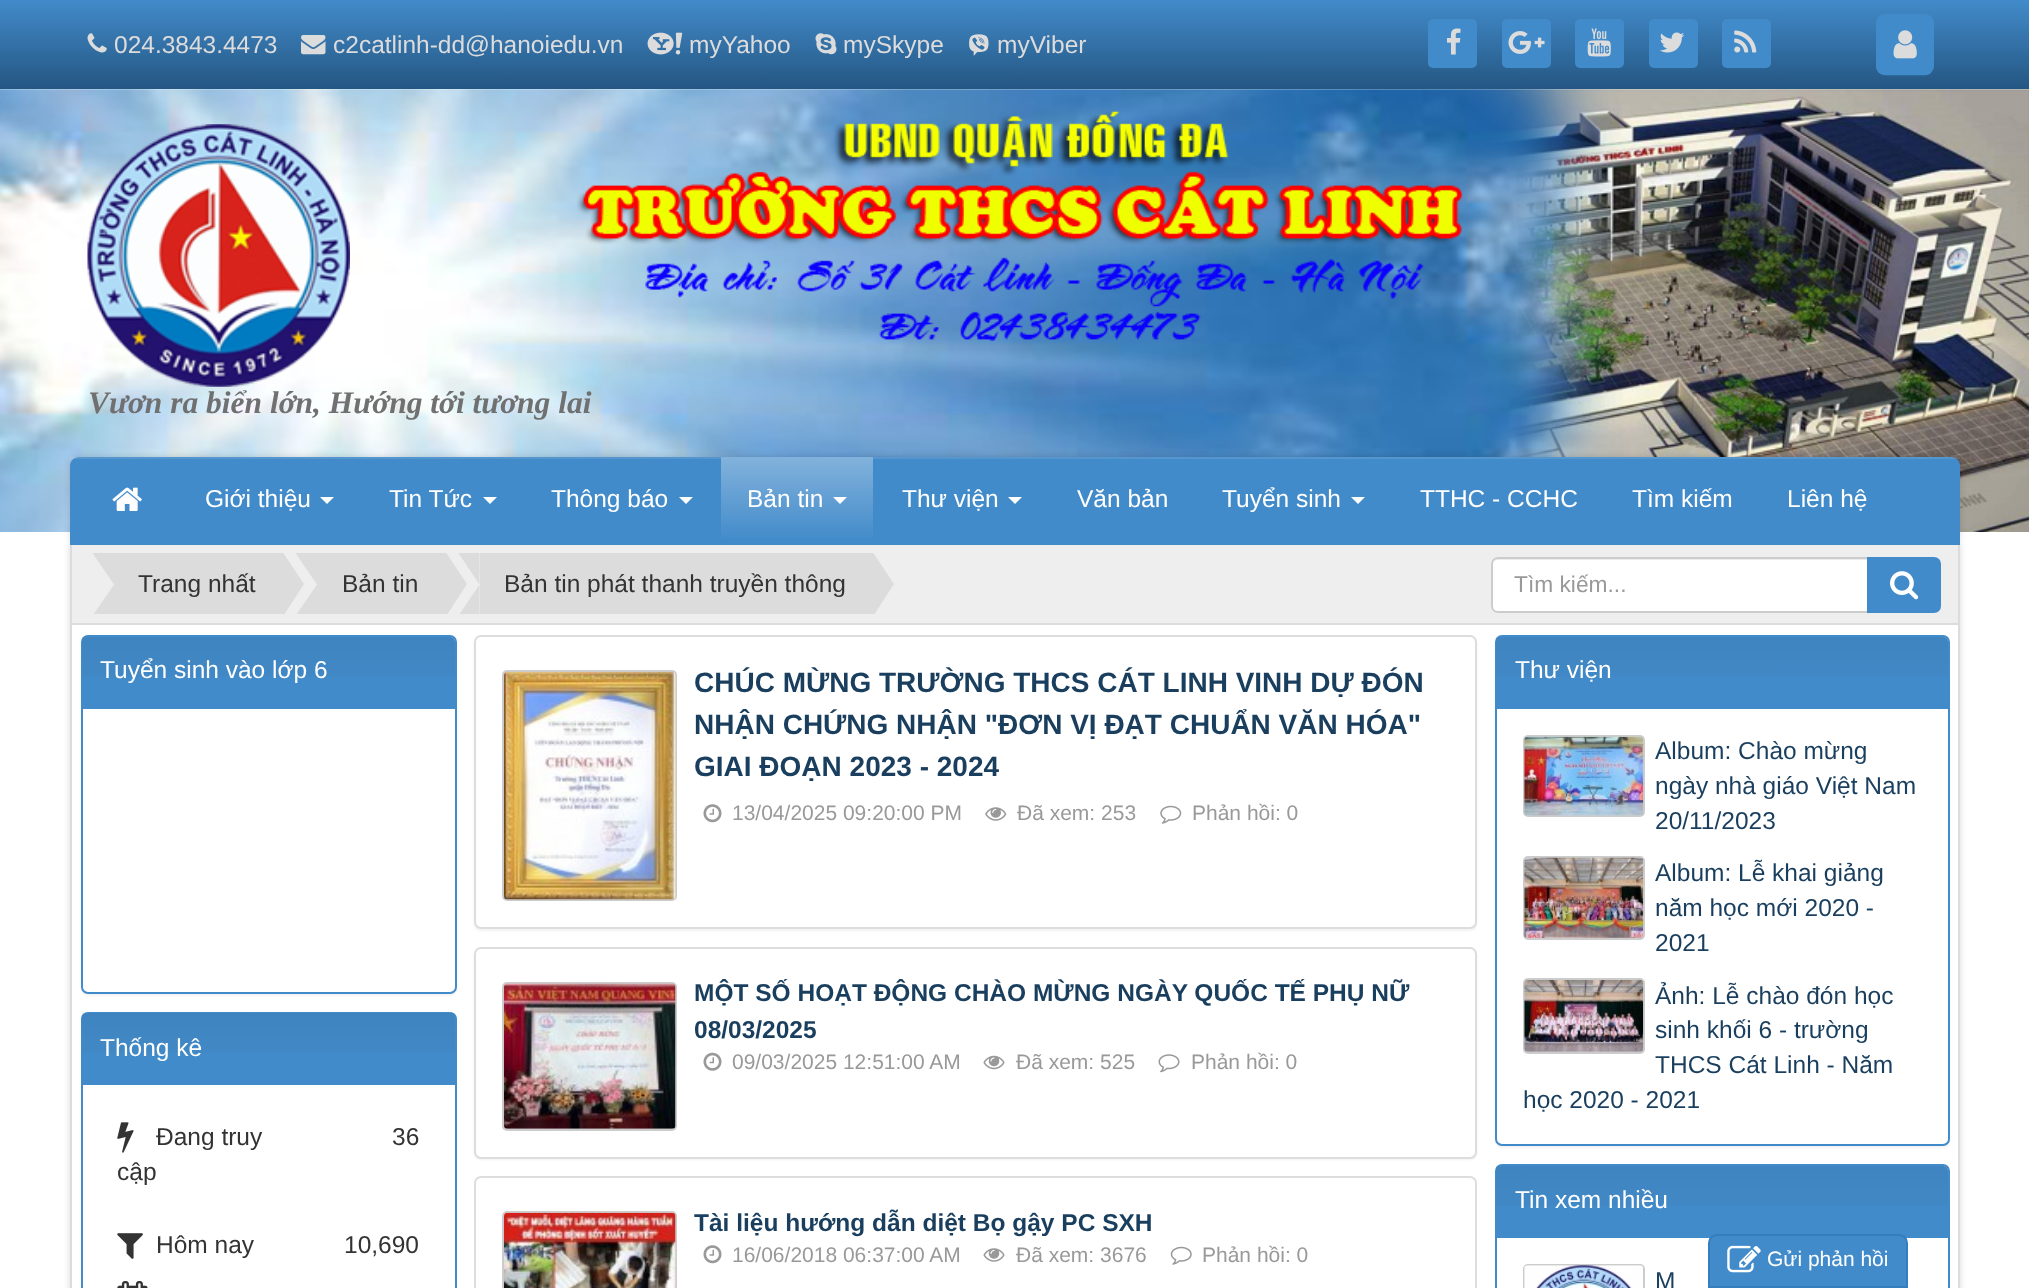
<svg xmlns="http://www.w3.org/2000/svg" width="2029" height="1288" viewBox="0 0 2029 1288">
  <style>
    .t1 { font: 24.5px Liberation Sans; fill: #dcdcdc; }
    .t2 { font: italic bold 31.5px Liberation Serif; fill: #707070; }
    .t3 { font: 24.5px Liberation Sans; fill: #fff; }
    .t4 { font: 24.5px Liberation Sans; fill: #333; }
    .t5 { font: 22.75px Liberation Sans; fill: #999; }
    .t6 { font: bold 28px Liberation Sans; fill: #1a3f5e; }
    .t7 { font: 21px Liberation Sans; fill: #999; }
    .t8 { font: bold 24.5px Liberation Sans; fill: #1a3f5e; }
    .t9 { font: 24.5px Liberation Sans; fill: #1a3f5e; }
    .t10 { font: 21px Liberation Sans; fill: #fff; }
  </style>
  <defs>
    <linearGradient id="g1" gradientUnits="userSpaceOnUse" x1="797" y1="457" x2="797" y2="541"><stop offset="0" stop-color="#82b2dc"/><stop offset="1" stop-color="#428bca"/></linearGradient>
    <clipPath id="clip1"><rect x="89" y="553" width="1385" height="61"/></clipPath>
    <linearGradient id="g2" gradientUnits="userSpaceOnUse" x1="269" y1="637" x2="269" y2="707"><stop offset="0" stop-color="#000" stop-opacity="0.05"/><stop offset="1" stop-color="#000" stop-opacity="0"/></linearGradient>
    <linearGradient id="g3" gradientUnits="userSpaceOnUse" x1="269" y1="1013" x2="269" y2="1083"><stop offset="0" stop-color="#000" stop-opacity="0.05"/><stop offset="1" stop-color="#000" stop-opacity="0"/></linearGradient>
    <linearGradient id="g4" gradientUnits="userSpaceOnUse" x1="1722" y1="637" x2="1722" y2="707"><stop offset="0" stop-color="#000" stop-opacity="0.05"/><stop offset="1" stop-color="#000" stop-opacity="0"/></linearGradient>
    <linearGradient id="g5" gradientUnits="userSpaceOnUse" x1="1722" y1="1166" x2="1722" y2="1236"><stop offset="0" stop-color="#000" stop-opacity="0.05"/><stop offset="1" stop-color="#000" stop-opacity="0"/></linearGradient>
  </defs>
  <rect width="100%" height="100%" fill="#fff"/>
  <image x="0" y="0" width="2029" height="532" href="images/1.png"/>
  <image x="87" y="33" width="20" height="20" href="images/2.png"/>
  <text x="114" y="53" class="t1">024.3843.4473</text>
  <image x="301" y="35" width="25" height="20" href="images/3.png"/>
  <text x="333" y="53" class="t1">c2catlinh-dd@hanoiedu.vn</text>
  <image x="647" y="32" width="36" height="23" href="images/4.png"/>
  <text x="689" y="53" class="t1">myYahoo</text>
  <image x="815" y="33" width="22" height="22" href="images/5.png"/>
  <text x="843" y="53" class="t1">mySkype</text>
  <image x="969" y="34" width="20" height="22" href="images/6.png"/>
  <text x="997" y="53" class="t1">myViber</text>
  <rect x="1428" y="19" width="49" height="49" rx="5" fill="#428bca"/>
  <image x="1447" y="28" width="14" height="27" href="images/7.png"/>
  <rect x="1502" y="19" width="49" height="49" rx="5" fill="#428bca"/>
  <image x="1508" y="31" width="37" height="23" href="images/8.png"/>
  <rect x="1575" y="19" width="49" height="49" rx="5" fill="#428bca"/>
  <image x="1587" y="28" width="24" height="29" href="images/9.png"/>
  <rect x="1649" y="19" width="49" height="49" rx="5" fill="#428bca"/>
  <image x="1660" y="32" width="25" height="21" href="images/10.png"/>
  <rect x="1722" y="19" width="49" height="49" rx="5" fill="#428bca"/>
  <image x="1734" y="30" width="23" height="23" href="images/11.png"/>
  <rect x="1876" y="14" width="58" height="61" rx="9" fill="#428bca"/>
  <path d="M1930 71.5C1927 74.5 1922 73.5 1918.5 73.5H1905C1873 73.5 1878 77 1878 44.5V30C1878 26 1876.5 21 1880 18" fill="none" stroke="#428bca" stroke-width="3.5"/>
  <image x="1893" y="30" width="24" height="29" href="images/12.png"/>
  <image x="87" y="124" width="263" height="263" href="images/13.png"/>
  <text x="88" y="413" class="t2">Vươn ra biển lớn, Hướng tới tương lai</text>
  <rect x="70" y="457" width="1890" height="87" rx="9" fill="#00000026" filter="blur(3.5px)"/>
  <rect x="70" y="544" width="1890" height="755" fill="#00000026" filter="blur(3.5px)"/>
  <path d="M79 457H1951C1956 457 1960 461 1960 466V543H70V466C70 461 74 457 79 457Z" fill="#428bca"/>
  <rect x="1958" y="544" width="2" height="744" fill="#dcdcdc"/>
  <rect x="70" y="544" width="2" height="744" fill="#dcdcdc"/>
  <rect x="70" y="543" width="1890" height="2" fill="#428bca"/>
  <rect x="70" y="457" width="1890" height="2" fill="#ffffff1a"/>
  <image x="112" y="487" width="30" height="24" href="images/14.png"/>
  <text x="205" y="507" class="t3">Giới thiệu</text>
  <path d="M320 497H334L327 504Z" fill="#fff"/>
  <text x="389" y="507" class="t3">Tin Tức</text>
  <path d="M483 497H497L490 504Z" fill="#fff"/>
  <text x="551" y="507" class="t3">Thông báo</text>
  <path d="M679 497H693L686 504Z" fill="#fff"/>
  <rect x="721" y="457" width="152" height="81" fill="url(#g1)"/>
  <text x="747" y="507" class="t3">Bản tin</text>
  <path d="M833 497H847L840 504Z" fill="#fff"/>
  <text x="902" y="507" class="t3">Thư viện</text>
  <path d="M1008 497H1022L1015 504Z" fill="#fff"/>
  <text x="1077" y="507" class="t3">Văn bản</text>
  <text x="1222" y="507" class="t3">Tuyển sinh</text>
  <path d="M1351 497H1365L1358 504Z" fill="#fff"/>
  <text x="1420" y="507" class="t3">TTHC - CCHC</text>
  <text x="1632" y="507" class="t3">Tìm kiếm</text>
  <text x="1787" y="507" class="t3">Liên hệ</text>
  <rect x="72" y="625" width="1886" height="663" fill="#fff"/>
  <rect x="72" y="623" width="1886" height="2" fill="#dcdcdc"/>
  <rect x="72" y="545" width="1886" height="78" fill="#eee"/>
  <rect x="114" y="553" width="166" height="61" fill="#dcdcdc"/>
  <g clip-path="url(#clip1)">
    <path d="M89 548H114V584.5Z" fill="#dcdcdc"/>
    <path d="M114 621H89L114 584.5Z" fill="#dcdcdc"/>
  </g>
  <text x="138" y="592" class="t4">Trang nhất</text>
  <g clip-path="url(#clip1)">
    <path d="M280 621V548L304 584Z" fill="#dcdcdc"/>
  </g>
  <rect x="317" y="553" width="126" height="61" fill="#dcdcdc"/>
  <g clip-path="url(#clip1)">
    <path d="M292 548H317V584.5Z" fill="#dcdcdc"/>
    <path d="M317 621H292L317 584.5Z" fill="#dcdcdc"/>
  </g>
  <text x="342" y="592" class="t4">Bản tin</text>
  <g clip-path="url(#clip1)">
    <path d="M443 621V548L467 584Z" fill="#dcdcdc"/>
  </g>
  <rect x="480" y="553" width="390" height="61" fill="#dcdcdc"/>
  <g clip-path="url(#clip1)">
    <path d="M455 548H479.5V584.5Z" fill="#dcdcdc"/>
    <path d="M479.5 621H455L479.5 584.5Z" fill="#dcdcdc"/>
  </g>
  <text x="504" y="592" class="t4">Bản tin phát thanh truyền thông</text>
  <g clip-path="url(#clip1)">
    <path d="M870 621V548L894 584Z" fill="#dcdcdc"/>
  </g>
  <path d="M1498 557H1869V613H1498C1494 613 1491 610 1491 606V564C1491 560 1494 557 1498 557Z" fill="#fff"/>
  <path d="M1498 560H1867V558H1498C1495 558 1493 560 1493 563V565C1493 562 1495 560 1498 560Z" fill="#ececec"/>
  <path d="M1498 558H1868V612H1498C1494.5 612 1492 609.5 1492 606V564C1492 560.5 1494.5 558 1498 558Z" fill="none" stroke="#ccc" stroke-width="2"/>
  <text x="1514" y="592" class="t5">Tìm kiếm...</text>
  <path d="M1868 558H1934C1937.5 558 1940 560.5 1940 564V606C1940 609.5 1937.5 612 1934 612H1868Z" fill="#428bca" stroke="#428bca" stroke-width="2"/>
  <image x="1890" y="571" width="29" height="29" href="images/15.png"/>
  <rect x="81" y="637" width="376" height="359" rx="7" fill="#0000000d" filter="blur(1px)"/>
  <rect x="82" y="636" width="374" height="357" rx="6" fill="#fff" stroke="#428bca" stroke-width="2"/>
  <path d="M87 637H450C453 637 455 639 455 642V709H82V642C82 639 84 637 87 637Z" fill="#428bca"/>
  <rect x="82" y="637" width="373" height="40" fill="url(#g2)"/>
  <text x="100" y="678" class="t3">Tuyển sinh vào lớp 6</text>
  <rect x="82" y="1013" width="374" height="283" rx="6" fill="none" stroke="#428bca" stroke-width="2"/>
  <path d="M87 1013H450C453 1013 455 1015 455 1018V1085H82V1018C82 1015 84 1013 87 1013Z" fill="#428bca"/>
  <rect x="82" y="1013" width="373" height="40" fill="url(#g3)"/>
  <text x="100" y="1056" class="t3">Thống kê</text>
  <image x="117" y="1122" width="17" height="31" href="images/16.png"/>
  <text x="156" y="1145" class="t4">Đang truy</text>
  <text x="117" y="1180" class="t4">cập</text>
  <text x="392" y="1145" class="t4">36</text>
  <image x="117" y="1233" width="26" height="26" href="images/17.png"/>
  <text x="156" y="1253" class="t4">Hôm nay</text>
  <text x="344" y="1253" class="t4">10,690</text>
  <image x="117" y="1281" width="31" height="7" href="images/18.png"/>
  <rect x="474" y="637" width="1003" height="294" rx="7" fill="#0000000d" filter="blur(1px)"/>
  <rect x="475" y="636" width="1001" height="292" rx="6" fill="#fff" stroke="#ddd" stroke-width="2"/>
  <rect x="502" y="670" width="175" height="231" rx="5" fill="#ccc"/>
  <image x="504" y="672" width="172" height="228" href="images/19.png"/>
  <text x="694" y="692" class="t6">CHÚC MỪNG TRƯỜNG THCS CÁT LINH VINH DỰ ĐÓN</text>
  <text x="694" y="734" class="t6">NHẬN CHỨNG NHẬN "ĐƠN VỊ ĐẠT CHUẨN VĂN HÓA"</text>
  <text x="694" y="776" class="t6">GIAI ĐOẠN 2023 - 2024</text>
  <image x="703" y="804" width="19" height="19" href="images/20.png"/>
  <text x="732" y="820" class="t7">13/04/2025 09:20:00 PM</text>
  <image x="985" y="807" width="22" height="14" href="images/21.png"/>
  <text x="1017" y="820" class="t7">Đã xem: 253</text>
  <image x="1160" y="805" width="22" height="19" href="images/22.png"/>
  <text x="1192" y="820" class="t7">Phản hồi: 0</text>
  <rect x="474" y="949" width="1003" height="211" rx="7" fill="#0000000d" filter="blur(1px)"/>
  <rect x="475" y="948" width="1001" height="210" rx="6" fill="#fff" stroke="#ddd" stroke-width="2"/>
  <rect x="502" y="982" width="175" height="149" rx="5" fill="#ccc"/>
  <image x="504" y="983" width="172" height="146" href="images/23.png"/>
  <text x="694" y="1001" class="t8">MỘT SỐ HOẠT ĐỘNG CHÀO MỪNG NGÀY QUỐC TẾ PHỤ NỮ</text>
  <text x="694" y="1038" class="t8">08/03/2025</text>
  <image x="703" y="1052" width="19" height="19" href="images/24.png"/>
  <text x="732" y="1069" class="t7">09/03/2025 12:51:00 AM</text>
  <image x="983" y="1055" width="22" height="15" href="images/25.png"/>
  <text x="1016" y="1069" class="t7">Đã xem: 525</text>
  <image x="1158" y="1054" width="22" height="19" href="images/26.png"/>
  <text x="1191" y="1069" class="t7">Phản hồi: 0</text>
  <rect x="475" y="1177" width="1001" height="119" rx="6" fill="none" stroke="#ddd" stroke-width="2"/>
  <rect x="502" y="1211" width="175" height="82" rx="5" fill="#ccc"/>
  <image x="504" y="1212" width="172" height="76" href="images/27.png"/>
  <text x="694" y="1231" class="t8">Tài liệu hướng dẫn diệt Bọ gậy PC SXH</text>
  <image x="703" y="1245" width="19" height="19" href="images/20.png"/>
  <text x="732" y="1262" class="t7">16/06/2018 06:37:00 AM</text>
  <image x="983" y="1248" width="22" height="14" href="images/28.png"/>
  <text x="1016" y="1262" class="t7">Đã xem: 3676</text>
  <image x="1170" y="1246" width="22" height="19" href="images/29.png"/>
  <text x="1202" y="1262" class="t7">Phản hồi: 0</text>
  <rect x="1495" y="637" width="455" height="511" rx="7" fill="#0000000d" filter="blur(1px)"/>
  <rect x="1496" y="636" width="453" height="509" rx="6" fill="#fff" stroke="#428bca" stroke-width="2"/>
  <path d="M1501 637H1943C1946 637 1948 639 1948 642V709H1496V642C1496 639 1498 637 1501 637Z" fill="#428bca"/>
  <rect x="1496" y="637" width="452" height="40" fill="url(#g4)"/>
  <text x="1515" y="678" class="t3">Thư viện</text>
  <rect x="1523" y="735" width="122" height="82" rx="5" fill="#ccc"/>
  <image x="1524" y="736" width="120" height="80" href="images/30.png"/>
  <text x="1655" y="759" class="t9">Album: Chào mừng</text>
  <text x="1655" y="794" class="t9">ngày nhà giáo Việt Nam</text>
  <text x="1655" y="829" class="t9">20/11/2023</text>
  <rect x="1523" y="856" width="122" height="84" rx="5" fill="#ccc"/>
  <image x="1524" y="857" width="120" height="81" href="images/31.png"/>
  <text x="1655" y="881" class="t9">Album: Lễ khai giảng</text>
  <text x="1655" y="916" class="t9">năm học mới 2020 -</text>
  <text x="1655" y="951" class="t9">2021</text>
  <rect x="1523" y="978" width="122" height="76" rx="5" fill="#ccc"/>
  <image x="1524" y="980" width="120" height="72" href="images/32.png"/>
  <text x="1655" y="1004" class="t9">Ảnh: Lễ chào đón học</text>
  <text x="1655" y="1038" class="t9">sinh khối 6 - trường</text>
  <text x="1655" y="1073" class="t9">THCS Cát Linh - Năm</text>
  <text x="1523" y="1108" class="t9">học 2020 - 2021</text>
  <rect x="1496" y="1165" width="453" height="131" rx="6" fill="none" stroke="#428bca" stroke-width="2"/>
  <path d="M1501 1166H1943C1946 1166 1948 1168 1948 1171V1237H1496V1171C1496 1168 1498 1166 1501 1166Z" fill="#428bca"/>
  <rect x="1496" y="1166" width="452" height="40" fill="url(#g5)"/>
  <rect x="1496" y="1237" width="452" height="1" fill="#428bca"/>
  <text x="1515" y="1208" class="t3">Tin xem nhiều</text>
  <rect x="1523" y="1264" width="122" height="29" rx="5" fill="#ccc"/>
  <image x="1524" y="1265" width="119" height="23" href="images/33.png"/>
  <text x="1655" y="1289" class="t9">M</text>
  <path d="M1717 1235H1899C1903.5 1235 1907 1238.5 1907 1243V1287H1709V1243C1709 1238.5 1712.5 1235 1717 1235Z" fill="#428bca" stroke="#357ebd" stroke-width="2"/>
  <image x="1727" y="1245" width="34" height="28" href="images/34.png"/>
  <text x="1767" y="1266" class="t10">Gửi phản hồi</text>
</svg>
